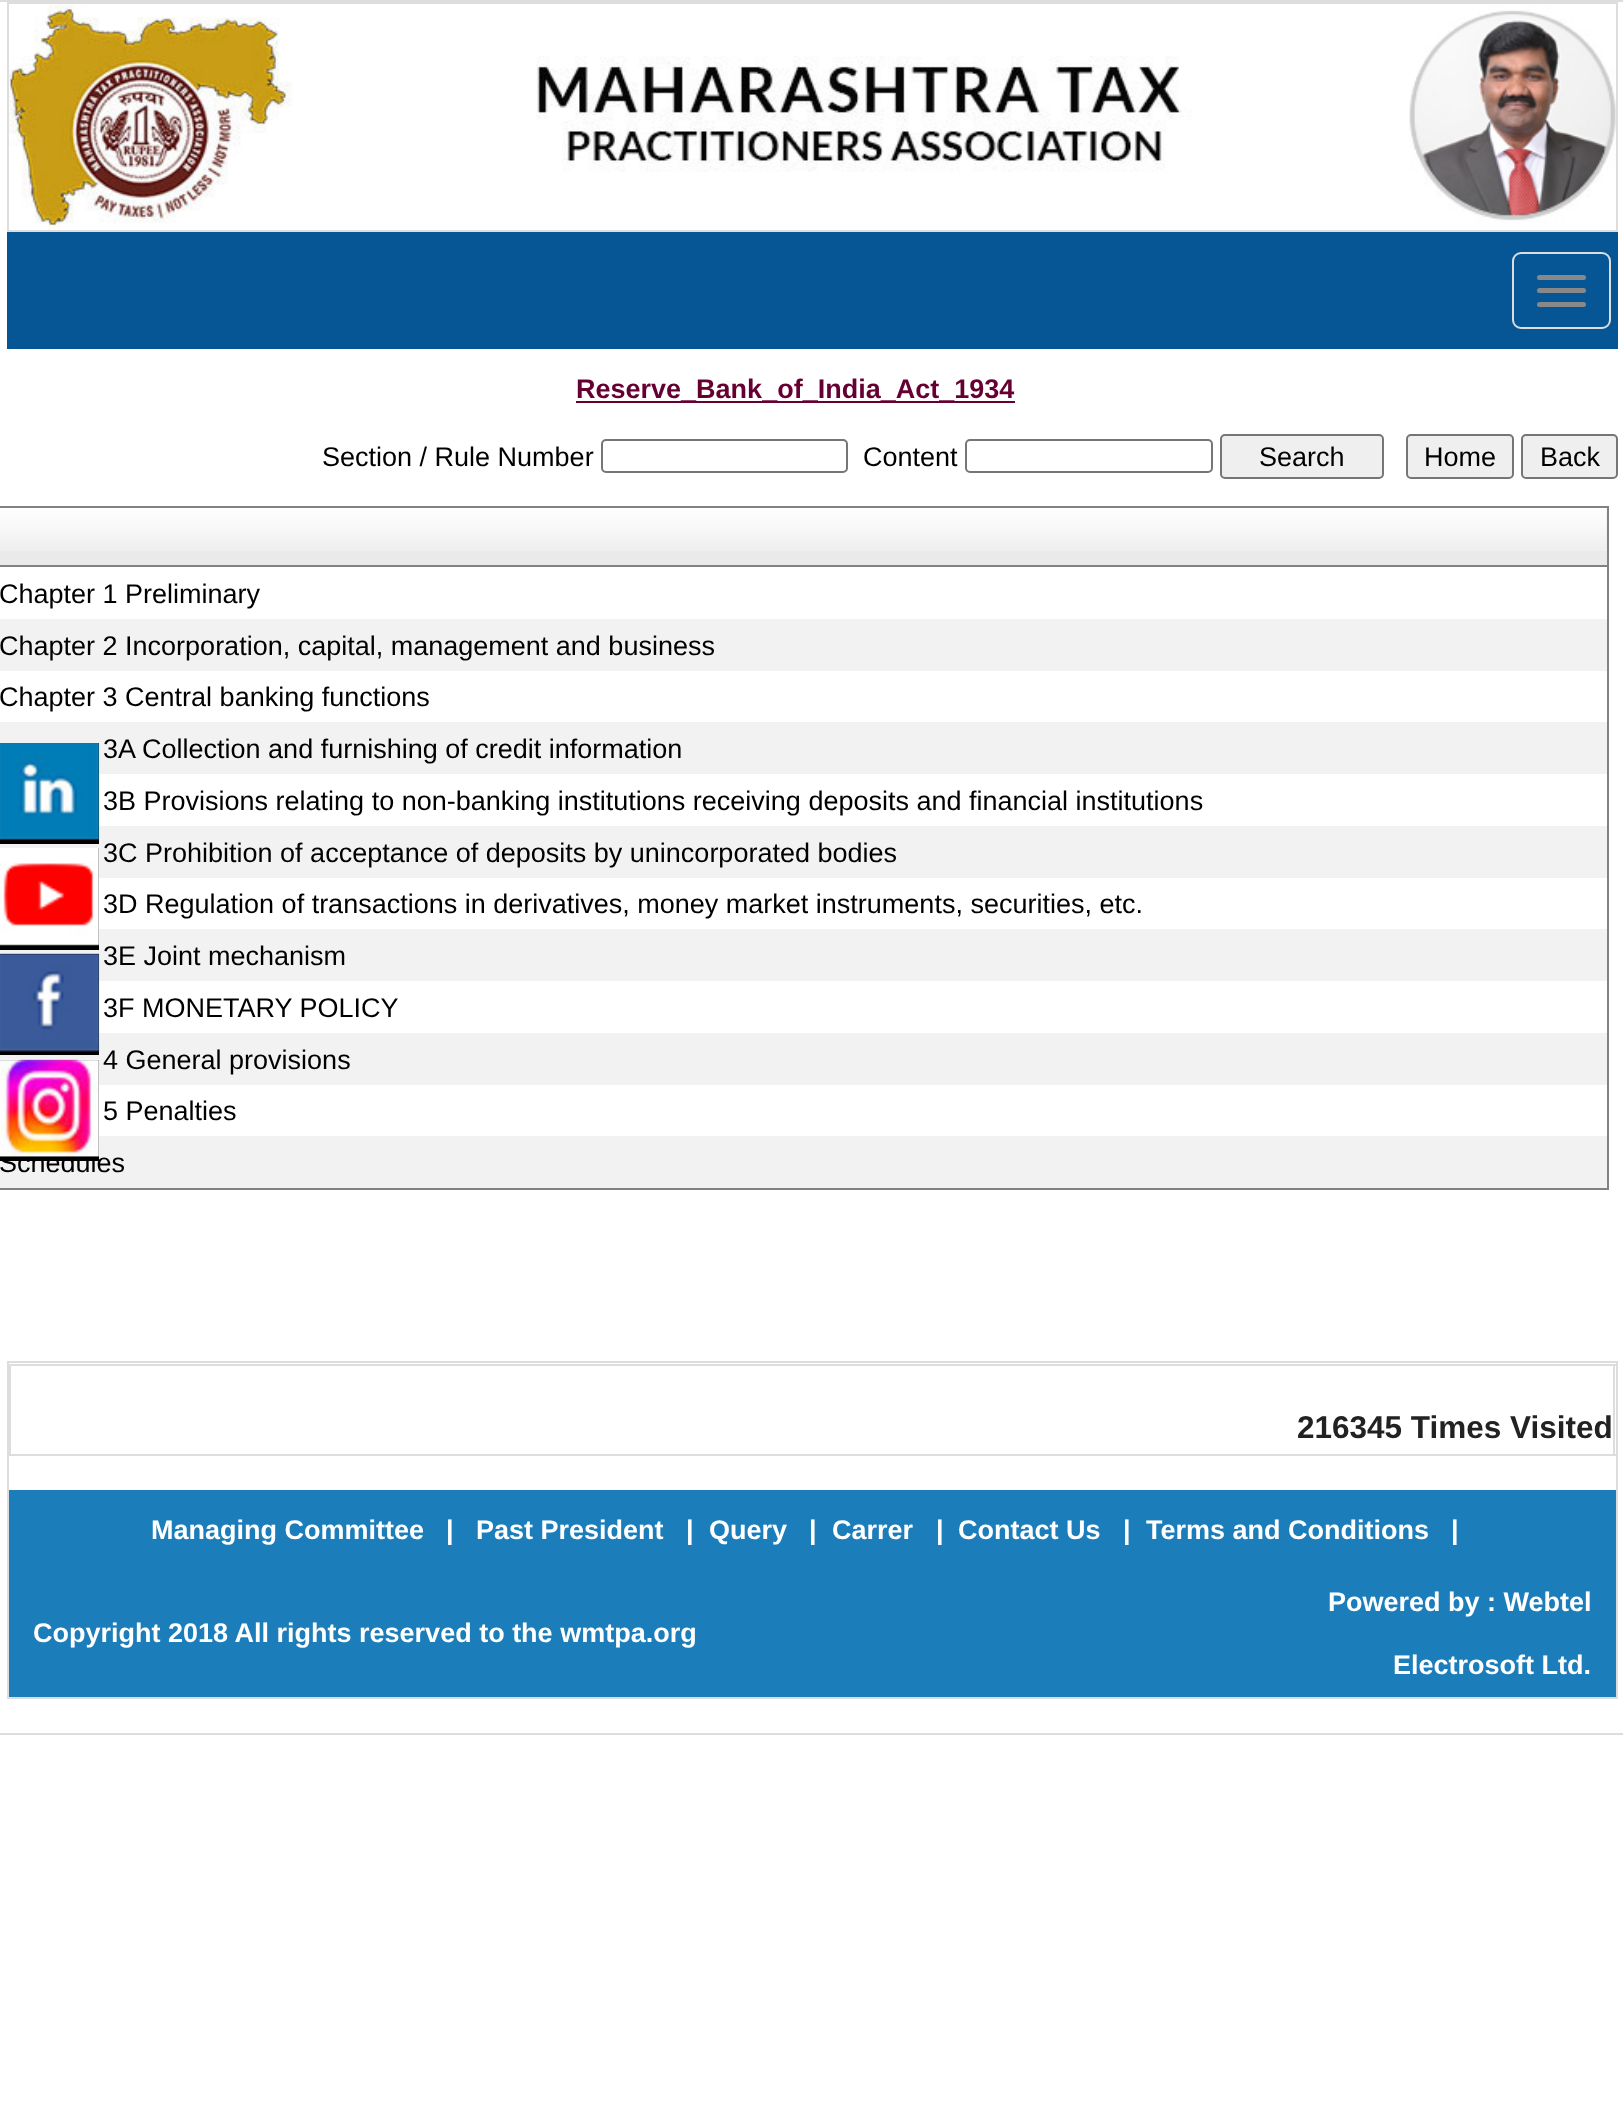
<svg xmlns="http://www.w3.org/2000/svg" width="1623" height="2106" viewBox="0 0 1623 2106">
  <style>
    .t1 { font: bold 27px Liberation Sans; fill: #603; }
    .t2 { font: 27px Liberation Sans; fill: #000; }
    .t3 { font: bold 31.5px Liberation Sans; fill: #222; }
    .t4 { font: bold 27px Liberation Sans; fill: #fff; }
  </style>
  <rect width="100%" height="100%" fill="#fff"/>
  <rect x="-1" y="1" width="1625" height="1733" fill="none" stroke="#ddd" stroke-width="2"/>
  <rect x="7" y="2" width="1611" height="2" fill="#ddd"/>
  <rect x="1616" y="2" width="2" height="230" fill="#ddd"/>
  <rect x="7" y="230" width="1611" height="2" fill="#ddd"/>
  <rect x="7" y="2" width="2" height="230" fill="#ddd"/>
  <image x="9" y="4" width="1607" height="226" href="images/1.png"/>
  <rect x="7" y="232" width="1611" height="117" fill="#065695"/>
  <rect x="1513" y="253" width="97" height="75" rx="8" fill="none" stroke="#ddd" stroke-width="2"/>
  <rect x="1537" y="275" width="49" height="5" rx="2.5" fill="#888"/>
  <rect x="1537" y="288" width="49" height="5" rx="2.5" fill="#888"/>
  <rect x="1537" y="302" width="49" height="5" rx="2.5" fill="#888"/>
  <rect x="576" y="401" width="439" height="2" fill="#603"/>
  <text x="576" y="398" class="t1">Reserve_Bank_of_India_Act_1934</text>
  <text x="322" y="466" class="t2">Section / Rule Number</text>
  <rect x="602" y="440" width="245" height="32" rx="4" fill="none" stroke="#767676" stroke-width="2"/>
  <text x="863" y="466" class="t2">Content</text>
  <rect x="966" y="440" width="246" height="32" rx="4" fill="none" stroke="#767676" stroke-width="2"/>
  <rect x="1221" y="435" width="162" height="43" rx="4" fill="#efefef" stroke="#767676" stroke-width="2"/>
  <text x="1259" y="466" class="t2">Search</text>
  <rect x="1407" y="435" width="106" height="43" rx="4" fill="#efefef" stroke="#767676" stroke-width="2"/>
  <text x="1424" y="466" class="t2">Home</text>
  <rect x="1522" y="435" width="95" height="43" rx="4" fill="#efefef" stroke="#767676" stroke-width="2"/>
  <text x="1540" y="466" class="t2">Back</text>
  <rect x="-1" y="507" width="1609" height="682" fill="none" stroke="#828282" stroke-width="2"/>
  <rect x="0" y="509" width="1607" height="56" fill="#eaeaea"/>
  <image x="0" y="509" width="1607" height="42" href="images/2.png"/>
  <rect x="0" y="565" width="1607" height="2" fill="#828282"/>
  <text x="-1" y="603" class="t2">Chapter 1 Preliminary</text>
  <rect x="0" y="619" width="1607" height="52" fill="#f2f2f2"/>
  <text x="-1" y="655" class="t2">Chapter 2 Incorporation, capital, management and business</text>
  <text x="-1" y="706" class="t2">Chapter 3 Central banking functions</text>
  <rect x="0" y="722" width="1607" height="52" fill="#f2f2f2"/>
  <text x="103" y="758" class="t2">3A Collection and furnishing of credit information</text>
  <text x="103" y="810" class="t2">3B Provisions relating to non-banking institutions receiving deposits and financial institutions</text>
  <rect x="0" y="826" width="1607" height="52" fill="#f2f2f2"/>
  <text x="103" y="862" class="t2">3C Prohibition of acceptance of deposits by unincorporated bodies</text>
  <text x="103" y="913" class="t2">3D Regulation of transactions in derivatives, money market instruments, securities, etc.</text>
  <rect x="0" y="929" width="1607" height="52" fill="#f2f2f2"/>
  <text x="103" y="965" class="t2">3E Joint mechanism</text>
  <text x="103" y="1017" class="t2">3F MONETARY POLICY</text>
  <rect x="0" y="1033" width="1607" height="52" fill="#f2f2f2"/>
  <text x="103" y="1069" class="t2">4 General provisions</text>
  <text x="103" y="1120" class="t2">5 Penalties</text>
  <rect x="0" y="1136" width="1607" height="52" fill="#f2f2f2"/>
  <text x="-1" y="1172" class="t2">Schedules</text>
  <rect x="7" y="1361" width="1611" height="2" fill="#ddd"/>
  <rect x="1616" y="1361" width="2" height="338" fill="#ddd"/>
  <rect x="7" y="1697" width="1611" height="2" fill="#ddd"/>
  <rect x="7" y="1361" width="2" height="338" fill="#ddd"/>
  <rect x="9" y="1364" width="1607" height="2" fill="#ddd"/>
  <rect x="1613" y="1364" width="2" height="92" fill="#ddd"/>
  <rect x="9" y="1454" width="1607" height="2" fill="#ddd"/>
  <rect x="9" y="1364" width="2" height="92" fill="#ddd"/>
  <text x="1297" y="1438" class="t3">216345 Times Visited</text>
  <rect x="0" y="743" width="99" height="101" fill="#000"/>
  <image x="0" y="743" width="100" height="97" href="images/3.png"/>
  <rect x="0" y="848" width="99" height="102" fill="#000"/>
  <image x="0" y="848" width="99" height="98" href="images/4.png"/>
  <rect x="0" y="954" width="99" height="101" fill="#000"/>
  <image x="0" y="953" width="100" height="99" href="images/5.png"/>
  <rect x="0" y="1060" width="99" height="101" fill="#000"/>
  <image x="0" y="1059" width="99" height="98" href="images/6.png"/>
  <rect x="9" y="1490" width="1607" height="207" fill="#1b7dba"/>
  <text x="151" y="1539" class="t4">Managing Committee</text>
  <text x="446" y="1539" class="t4">|</text>
  <text x="476" y="1539" class="t4">Past President</text>
  <text x="686" y="1539" class="t4">|</text>
  <text x="709" y="1539" class="t4">Query</text>
  <text x="809" y="1539" class="t4">|</text>
  <text x="832" y="1539" class="t4">Carrer</text>
  <text x="936" y="1539" class="t4">|</text>
  <text x="958" y="1539" class="t4">Contact Us</text>
  <text x="1123" y="1539" class="t4">|</text>
  <text x="1146" y="1539" class="t4">Terms and Conditions</text>
  <text x="1451" y="1539" class="t4">|</text>
  <text x="33" y="1642" class="t4">Copyright 2018 All rights reserved to the wmtpa.org</text>
  <text x="1328" y="1611" class="t4">Powered by : Webtel</text>
  <text x="1393" y="1674" class="t4">Electrosoft Ltd.</text>
</svg>
